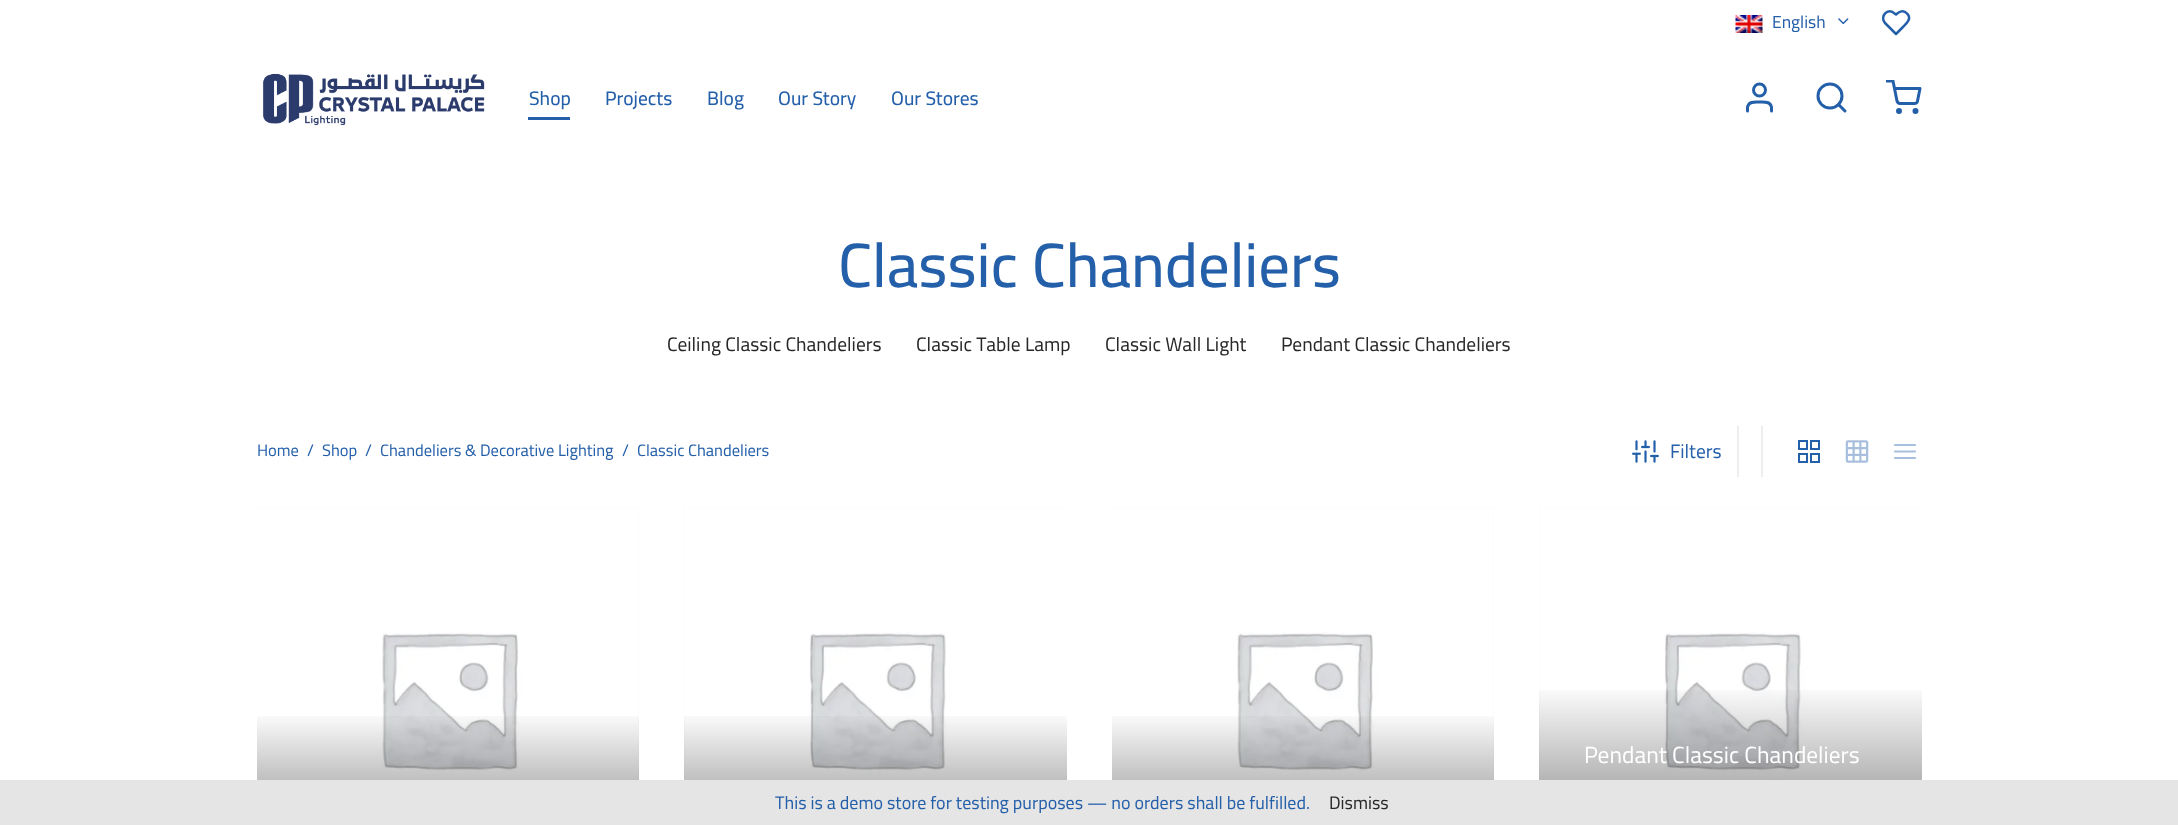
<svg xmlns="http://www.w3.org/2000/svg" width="2178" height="825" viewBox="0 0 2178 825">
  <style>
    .t1 { font: 17.5px Cairo; fill: #245faa; }
    .t2 { font: 500 19.5px Cairo; fill: #245faa; }
    .t3 { font: 500 62.5px Cairo; fill: #245faa; }
    .t4 { font: 19.5px Cairo; fill: #282828; }
    .t5 { font: 16.5px Cairo; fill: #245faa; }
    .t6 { font: 19.5px Cairo; fill: #245faa; }
    .t7 { font: 23.4px Cairo; fill: #fff; }
    .t8 { font: 18px Cairo; fill: #245faa; }
    .t9 { font: 18px Cairo; fill: #282828; }
  </style>
  <defs>
    <clipPath id="clip1"><rect x="1886" y="80" width="36" height="36"/></clipPath>
    <linearGradient id="g1" gradientUnits="userSpaceOnUse" x1="448" y1="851" x2="448" y2="710"><stop offset="0" stop-color="#000" stop-opacity="0.5"/><stop offset="1" stop-color="#000" stop-opacity="0"/></linearGradient>
    <linearGradient id="g2" gradientUnits="userSpaceOnUse" x1="875" y1="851" x2="875" y2="710"><stop offset="0" stop-color="#000" stop-opacity="0.5"/><stop offset="1" stop-color="#000" stop-opacity="0"/></linearGradient>
    <linearGradient id="g3" gradientUnits="userSpaceOnUse" x1="1303" y1="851" x2="1303" y2="710"><stop offset="0" stop-color="#000" stop-opacity="0.5"/><stop offset="1" stop-color="#000" stop-opacity="0"/></linearGradient>
    <linearGradient id="g4" gradientUnits="userSpaceOnUse" x1="1730" y1="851" x2="1730" y2="683"><stop offset="0" stop-color="#000" stop-opacity="0.5"/><stop offset="1" stop-color="#000" stop-opacity="0"/></linearGradient>
  </defs>
  <rect width="100%" height="100%" fill="#fff"/>
  <image x="1735" y="15" width="28" height="18" href="images/1.png"/>
  <text x="1772" y="28" class="t1">English</text>
  <image x="1838" y="18" width="11" height="7" href="images/2.png"/>
  <path d="M1907 13.5C1903.5 9.5 1899 11.5 1896 14.5L1894.5 13.5C1892 10.5 1887.5 10.5 1885 13.5C1882.5 16 1882.5 20.5 1885 23L1896 34L1902.5 27.5C1906 24 1912.5 18.5 1907 13.5Z" fill="none" stroke="#245faa" stroke-width="2.5" stroke-linecap="round" stroke-linejoin="round"/>
  <image x="262" y="73" width="223" height="53" href="images/3.png"/>
  <text x="529" y="105" class="t2">Shop</text>
  <rect x="528" y="117" width="42" height="3" fill="#245faa"/>
  <text x="605" y="105" class="t2">Projects</text>
  <text x="707" y="105" class="t2">Blog</text>
  <text x="778" y="105" class="t2">Our Story</text>
  <text x="891" y="105" class="t2">Our Stores</text>
  <path d="M1771.5 111V107C1770 101 1764 102 1759.5 102C1755 102 1749 101 1747.5 107V111" fill="none" stroke="#245faa" stroke-width="3" stroke-linecap="round" stroke-linejoin="round"/>
  <circle cx="1759.5" cy="90" r="6" fill="none" stroke="#245faa" stroke-width="3"/>
  <circle cx="1830" cy="96" r="12" fill="none" stroke="#245faa" stroke-width="3"/>
  <path d="M1845 111L1838.5 104.5" fill="none" stroke="#245faa" stroke-width="3" stroke-linecap="round" stroke-linejoin="round"/>
  <circle cx="1899" cy="111" r="1.5" fill="none" stroke="#245faa" stroke-width="3"/>
  <circle cx="1915.5" cy="111" r="1.5" fill="none" stroke="#245faa" stroke-width="3"/>
  <g clip-path="url(#clip1)">
    <path d="M1887 81H1893L1897 101C1897.5 102.5 1898.5 103.5 1900 103.5H1914.5C1916 103.5 1917.5 102.5 1917.5 101L1920 88.5H1894.5" fill="none" stroke="#245faa" stroke-width="3" stroke-linecap="round" stroke-linejoin="round"/>
  </g>
  <text x="838" y="287" class="t3">Classic Chandeliers</text>
  <text x="667" y="351" class="t4">Ceiling Classic Chandeliers</text>
  <text x="916" y="351" class="t4">Classic Table Lamp</text>
  <text x="1105" y="351" class="t4">Classic Wall Light</text>
  <text x="1281" y="351" class="t4">Pendant Classic Chandeliers</text>
  <text x="257" y="456" class="t5">Home</text>
  <text x="307" y="456" class="t5">/</text>
  <text x="322" y="456" class="t5">Shop</text>
  <text x="365" y="456" class="t5">/</text>
  <text x="380" y="456" class="t5">Chandeliers &amp; Decorative Lighting</text>
  <text x="622" y="456" class="t5">/</text>
  <text x="637" y="456" class="t5">Classic Chandeliers</text>
  <rect x="1737" y="426" width="2" height="51" fill="#eee"/>
  <image x="1632" y="440" width="27" height="23" href="images/4.png"/>
  <text x="1670" y="458" class="t6">Filters</text>
  <rect x="1761" y="426" width="2" height="51" fill="#eee"/>
  <rect x="1799" y="441" width="8" height="8" fill="none" stroke="#245faa" stroke-width="2"/>
  <rect x="1811" y="441" width="8" height="8" fill="none" stroke="#245faa" stroke-width="2"/>
  <rect x="1799" y="454" width="8" height="8" fill="none" stroke="#245faa" stroke-width="2"/>
  <rect x="1811" y="454" width="8" height="8" fill="none" stroke="#245faa" stroke-width="2"/>
  <image x="1845" y="440" width="24" height="23" href="images/5.png"/>
  <path d="M1895 451.5H1915M1895 445H1915M1895 458H1915" fill="none" stroke="#a7bfdd" stroke-width="2.2" stroke-linecap="round" stroke-linejoin="round"/>
  <rect x="257" y="507" width="382" height="273" fill="#f8f8f8"/>
  <image x="257" y="507" width="382" height="273" href="images/6.png"/>
  <rect x="257" y="716" width="382" height="64" fill="url(#g1)"/>
  <rect x="684" y="507" width="383" height="273" fill="#f8f8f8"/>
  <image x="684" y="507" width="383" height="273" href="images/7.png"/>
  <rect x="684" y="716" width="383" height="64" fill="url(#g2)"/>
  <rect x="1112" y="507" width="382" height="273" fill="#f8f8f8"/>
  <image x="1112" y="507" width="382" height="273" href="images/6.png"/>
  <rect x="1112" y="716" width="382" height="64" fill="url(#g3)"/>
  <rect x="1539" y="507" width="383" height="273" fill="#f8f8f8"/>
  <image x="1539" y="507" width="383" height="273" href="images/7.png"/>
  <rect x="1539" y="690" width="383" height="90" fill="url(#g4)"/>
  <text x="1584" y="763" class="t7">Pendant Classic Chandeliers</text>
  <rect x="0" y="780" width="2178" height="45" fill="#e5e5e5"/>
  <text x="775" y="809" class="t8">This is a demo store for testing purposes — no orders shall be fulfilled.</text>
  <text x="1329" y="809" class="t9">Dismiss</text>
</svg>
